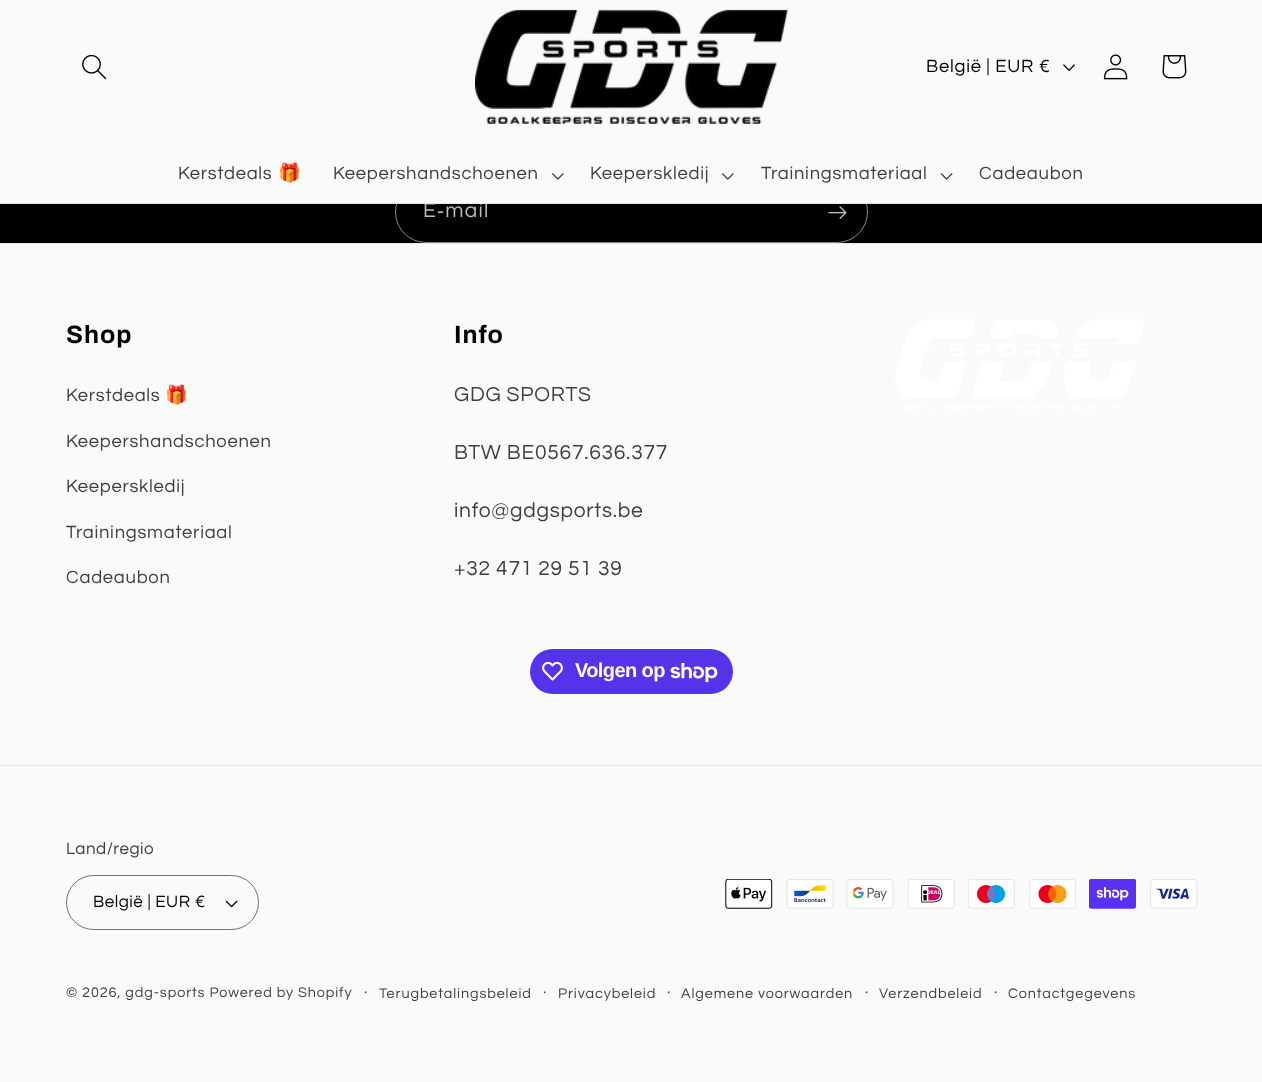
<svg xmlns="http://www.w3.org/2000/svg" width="1262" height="1082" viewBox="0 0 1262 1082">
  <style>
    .t1 { font: 21px Questrial; letter-spacing: 1.25px; fill: #bcbcbc; }
    .t2 { font: 18.4px Questrial; letter-spacing: 0.75px; fill: #000; }
    .t3 { font: 18.4px Questrial; letter-spacing: 0.75px; fill: #3f3f3f; }
    .t4 { font: 18.4px Noto Color Emoji; letter-spacing: 0.75px; fill: #3f3f3f; }
    .t5 { font: bold 25px Archivo; letter-spacing: 1px; fill: #000; }
    .t6 { font: 21px Questrial; letter-spacing: 0.75px; fill: #3f3f3f; }
    .t7 { font: bold 20px Liberation Sans; letter-spacing: -0.6px; fill: #fff; }
    .t8 { font: 17px Questrial; letter-spacing: 0.5px; fill: #3f3f3f; }
    .t9 { font: 17px Questrial; letter-spacing: 0.5px; fill: #000; }
    .t10 { font: 14.4px Questrial; letter-spacing: 0.9px; fill: #3f3f3f; }
    .t11 { font: 16px Questrial; letter-spacing: 0.9px; fill: #3f3f3f; }
  </style>
  <rect width="100%" height="100%" fill="#fafafa"/>
  <rect x="0" y="204" width="1262" height="39" fill="#000"/>
  <rect x="395.5" y="181.5" width="472" height="61" rx="30.5" fill="none" stroke="#8a8a8a"/>
  <text x="423" y="217" class="t1">E‑mail</text>
  <rect x="396" y="181" width="471" height="22" fill="#fafafa"/>
  <rect x="0" y="203" width="1262" height="1" fill="#e6e6e6"/>
  <image x="82" y="54" width="25" height="26" href="images/1.png"/>
  <image x="475" y="9" width="313" height="115" href="images/2.png"/>
  <text x="926" y="72" class="t2">België | EUR €</text>
  <image x="1063" y="64" width="12" height="7" href="images/3.png"/>
  <image x="1103" y="54" width="25" height="26" href="images/4.png"/>
  <image x="1162" y="55" width="25" height="24" href="images/5.png"/>
  <text x="178" y="179" class="t3">Kerstdeals</text>
  <text x="278" y="179" class="t4">🎁</text>
  <text x="333" y="179" class="t3">Keepershandschoenen</text>
  <image x="552" y="173" width="12" height="7" href="images/6.png"/>
  <text x="590" y="179" class="t3">Keeperskledij</text>
  <image x="722" y="173" width="12" height="7" href="images/6.png"/>
  <text x="761" y="179" class="t3">Trainingsmateriaal</text>
  <image x="940" y="173" width="13" height="7" href="images/7.png"/>
  <text x="979" y="179" class="t3">Cadeaubon</text>
  <image x="828" y="206" width="19" height="13" href="images/8.png"/>
  <rect x="0" y="243" width="1262" height="1" fill="#e6e6e6"/>
  <text x="66" y="343" class="t5">Shop</text>
  <text x="66" y="401" class="t3">Kerstdeals</text>
  <text x="165" y="401" class="t4">🎁</text>
  <text x="66" y="447" class="t3">Keepershandschoenen</text>
  <text x="66" y="492" class="t3">Keeperskledij</text>
  <text x="66" y="538" class="t3">Trainingsmateriaal</text>
  <text x="66" y="583" class="t3">Cadeaubon</text>
  <text x="454" y="343" class="t5">Info</text>
  <text x="454" y="401" class="t6">GDG SPORTS</text>
  <text x="454" y="459" class="t6">BTW BE0567.636.377</text>
  <text x="454" y="517" class="t6">info@gdgsports.be</text>
  <text x="454" y="575" class="t6">+32 471 29 51 39</text>
  <image x="895" y="319" width="249" height="91" href="images/9.png"/>
  <rect x="530" y="649" width="203" height="45" rx="22.5" fill="#5433eb"/>
  <image x="542" y="661" width="21" height="20" href="images/10.png"/>
  <text x="575" y="677" class="t7">Volgen op</text>
  <image x="670" y="663" width="48" height="20" href="images/11.png"/>
  <rect x="0" y="765" width="1262" height="1" fill="#e6e6e6"/>
  <text x="66" y="854" class="t8">Land/regio</text>
  <image x="225" y="900" width="13" height="8" href="images/12.png"/>
  <rect x="66.5" y="875.5" width="192" height="54" rx="27" fill="none" stroke="#717171"/>
  <text x="93" y="907" class="t9">België | EUR €</text>
  <image x="725" y="879" width="48" height="30" href="images/13.png"/>
  <image x="786" y="879" width="48" height="30" href="images/14.png"/>
  <image x="846" y="879" width="48" height="30" href="images/15.png"/>
  <image x="908" y="879" width="47" height="30" href="images/16.png"/>
  <image x="968" y="879" width="47" height="30" href="images/17.png"/>
  <image x="1029" y="879" width="47" height="30" href="images/18.png"/>
  <image x="1089" y="879" width="47" height="30" href="images/19.png"/>
  <image x="1150" y="879" width="48" height="30" href="images/20.png"/>
  <text x="66" y="997" class="t10">© 2026, gdg-sports Powered by Shopify</text>
  <text x="364" y="997" class="t11">·</text>
  <text x="379" y="998" class="t10">Terugbetalingsbeleid</text>
  <text x="543" y="997" class="t11">·</text>
  <text x="558" y="998" class="t10">Privacybeleid</text>
  <text x="667" y="997" class="t11">·</text>
  <text x="681" y="998" class="t10">Algemene voorwaarden</text>
  <text x="865" y="997" class="t11">·</text>
  <text x="879" y="998" class="t10">Verzendbeleid</text>
  <text x="994" y="997" class="t11">·</text>
  <text x="1008" y="998" class="t10">Contactgegevens</text>
</svg>
